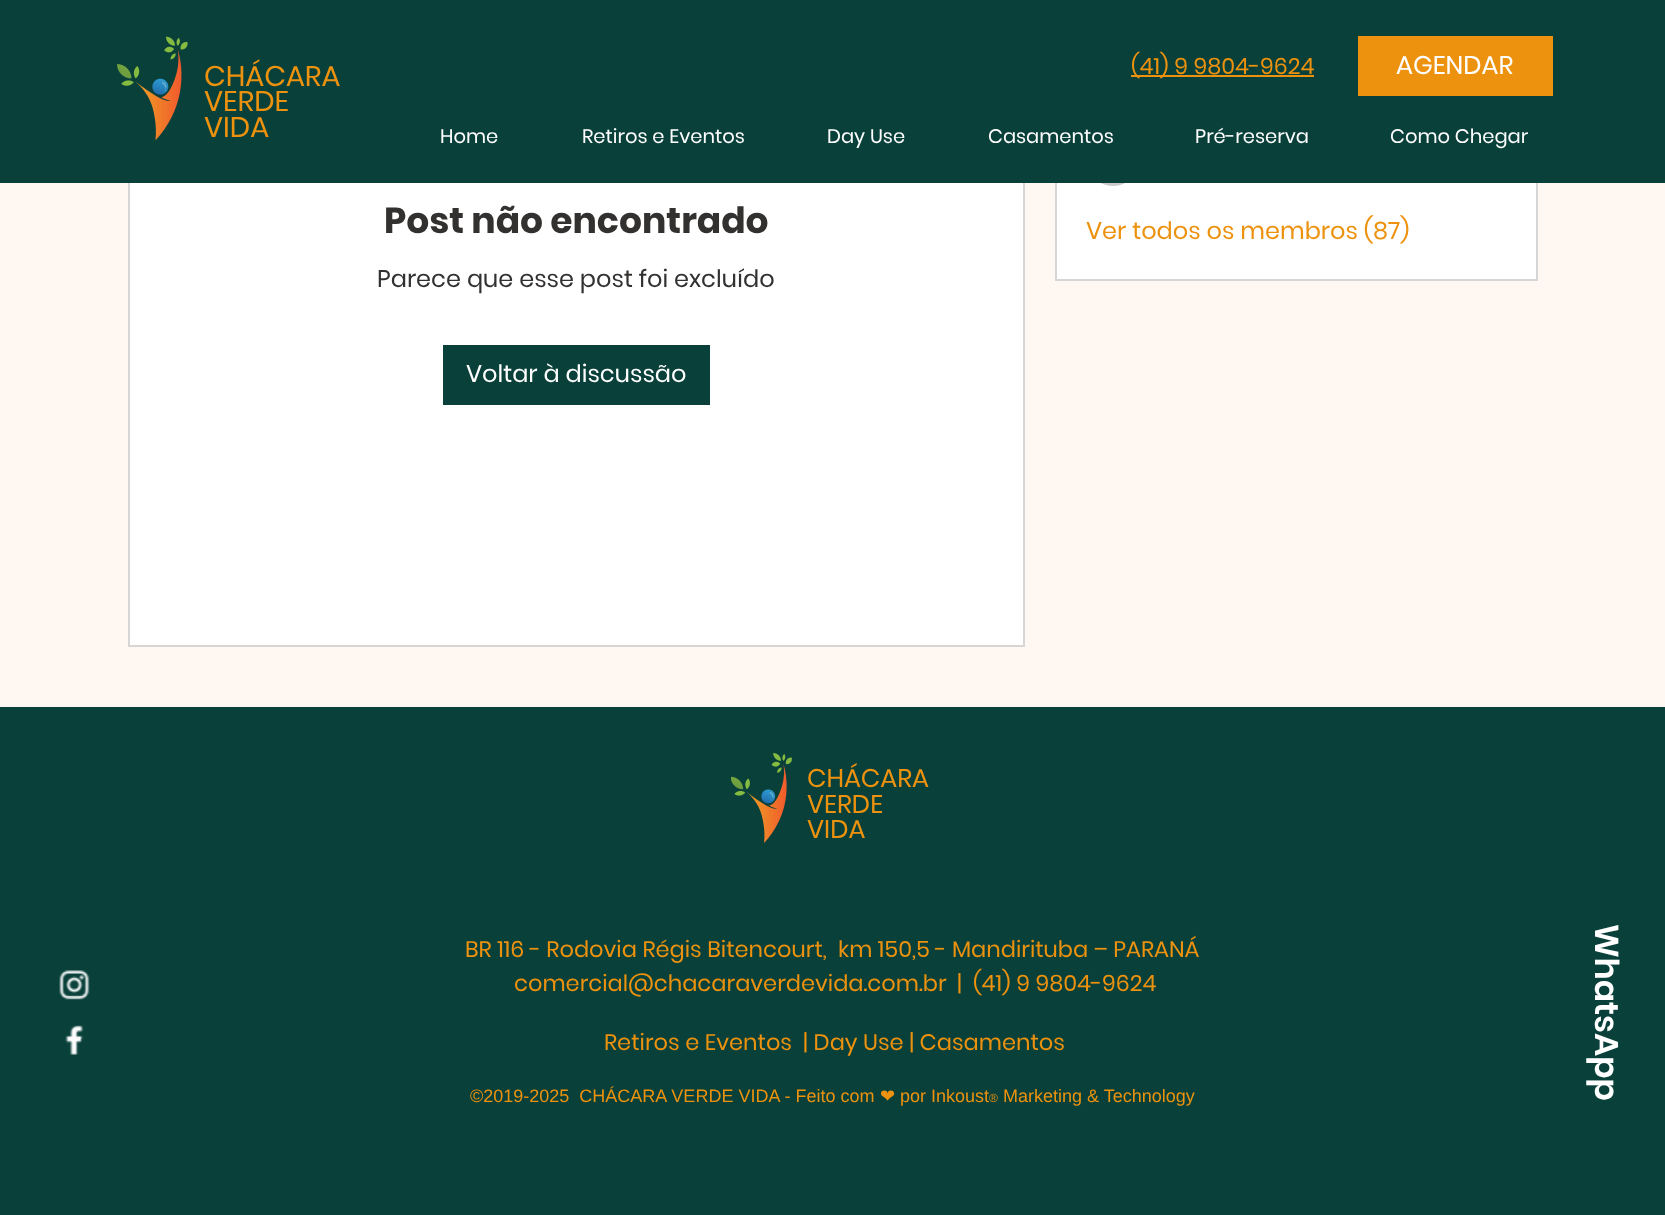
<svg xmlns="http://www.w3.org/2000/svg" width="1665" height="1215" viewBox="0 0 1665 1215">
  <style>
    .t1 { font: 28.5px Poppins; fill: #ed920e; }
    .t2 { font: 22.5px Poppins; fill: #ed920e; }
    .t3 { font: 25.5px Poppins; fill: #fff; }
    .t4 { font: 19.5px Poppins; fill: #fff; }
    .t5 { font: bold 36px Poppins; fill: #333130; }
    .t6 { font: 24px Poppins; fill: #333130; }
    .t7 { font: 24px Poppins; fill: #fff; }
    .t8 { font: 24px Poppins; fill: #ed920e; }
    .t9 { font: 25.5px Poppins; fill: #ed920e; }
    .t10 { font: 18px Liberation Sans; fill: #ed920e; }
    .t11 { font: 18px DejaVu Sans; fill: #ed920e; }
    .t12 { font: 12px Liberation Sans; fill: #ed920e; }
    .t13 { font: 600 33px Poppins; fill: #fff; }
  </style>
  <rect width="100%" height="100%" fill="#fff7f2"/>
  <rect x="130" y="183" width="893" height="462" fill="#fff"/>
  <rect x="129" y="-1" width="895" height="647" fill="none" stroke="#d6d6d6" stroke-width="2"/>
  <rect x="1057" y="183" width="479" height="96" fill="#fff"/>
  <rect x="1056" y="-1" width="481" height="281" fill="none" stroke="#d6d6d6" stroke-width="2"/>
  <circle cx="1113" cy="159" r="27" fill="#cccac8"/>
  <rect x="0" y="0" width="1665" height="183" fill="#09403a"/>
  <image x="117" y="36" width="71" height="105" href="images/1.png"/>
  <text x="204" y="86" class="t1">CHÁCARA</text>
  <text x="204" y="111" class="t1">VERDE</text>
  <text x="204" y="137" class="t1">VIDA</text>
  <rect x="1131" y="75" width="183" height="2" fill="#ed920e"/>
  <text x="1131" y="74" class="t2">(41) 9 9804-9624</text>
  <rect x="1358" y="36" width="195" height="60" fill="#ed920e"/>
  <text x="1396" y="74" class="t3">AGENDAR</text>
  <text x="440" y="143" class="t4">Home</text>
  <text x="582" y="143" class="t4">Retiros e Eventos</text>
  <text x="827" y="143" class="t4">Day Use</text>
  <text x="988" y="143" class="t4">Casamentos</text>
  <text x="1195" y="143" class="t4">Pré-reserva</text>
  <text x="1390" y="143" class="t4">Como Chegar</text>
  <text x="384" y="233" class="t5">Post não encontrado</text>
  <text x="377" y="287" class="t6">Parece que esse post foi excluído</text>
  <rect x="443" y="345" width="267" height="60" fill="#09403a"/>
  <text x="466" y="382" class="t7">Voltar à discussão</text>
  <text x="1086" y="239" class="t8">Ver todos os membros (87)</text>
  <rect x="0" y="707" width="1665" height="508" fill="#09403a"/>
  <image x="59" y="970" width="31" height="30" href="images/2.png"/>
  <image x="65" y="1025" width="19" height="30" href="images/3.png"/>
  <image x="731" y="753" width="61" height="90" href="images/4.png"/>
  <text x="807" y="787" class="t9">CHÁCARA</text>
  <text x="807" y="813" class="t9">VERDE</text>
  <text x="807" y="838" class="t9">VIDA</text>
  <text x="465" y="957" class="t2">BR 116 - Rodovia Régis Bitencourt,</text>
  <text x="838" y="957" class="t2">km 150,5 - Mandirituba – PARANÁ</text>
  <text x="514" y="991" class="t2">comercial@chacaraverdevida.com.br</text>
  <text x="957" y="991" class="t2">|</text>
  <text x="973" y="991" class="t2">(41) 9 9804-9624</text>
  <text x="604" y="1050" class="t2" xml:space="preserve">Retiros e Eventos  | Day Use | Casamentos</text>
  <text x="470" y="1102" class="t10" xml:space="preserve">©2019-2025  CHÁCARA VERDE VIDA - Feito com</text>
  <text x="880" y="1102" class="t11">❤︎</text>
  <text x="900" y="1102" class="t10">por Inkoust</text>
  <text x="989" y="1102" class="t12">®</text>
  <text x="1003" y="1102" class="t10">Marketing &amp; Technology</text>
  <text x="1595" y="924" transform="rotate(90 1595 924)" class="t13">WhatsApp</text>
</svg>
